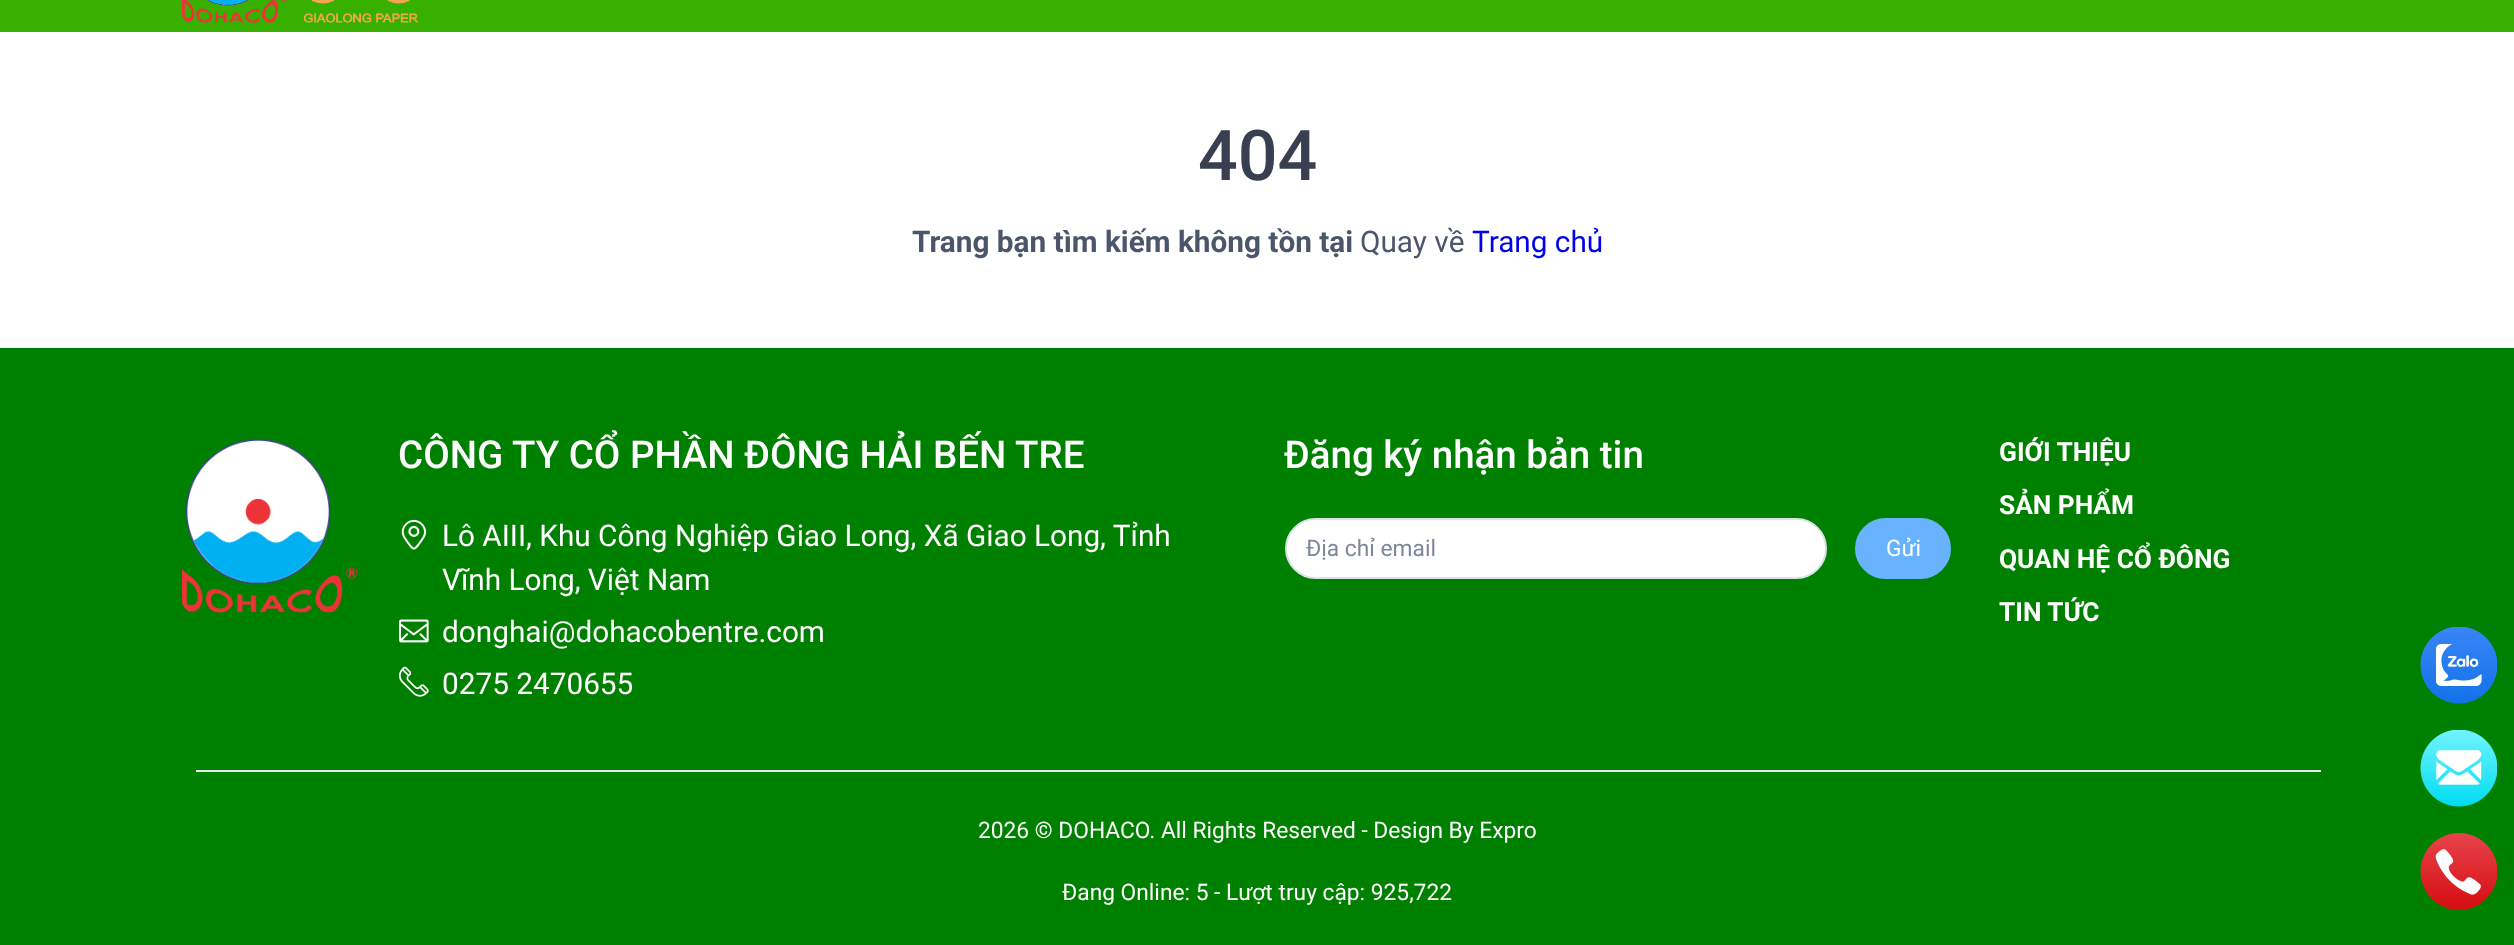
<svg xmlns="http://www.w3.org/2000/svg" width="2514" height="945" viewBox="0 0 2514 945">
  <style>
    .t1 { font: 500 70px Roboto; fill: #373f50; }
    .t2 { font: bold 29.75px Roboto; fill: #4b566b; }
    .t3 { font: 29.75px Roboto; fill: #4b566b; }
    .t4 { font: 29.75px Roboto; fill: #00e; }
    .t5 { font: 500 38.5px Roboto; fill: #fff; }
    .t6 { font: 29.75px Roboto; fill: #fff; }
    .t7 { font: 22.75px Roboto; fill: #7d879c; }
    .t8 { font: 22.75px Roboto; fill: #fff; }
    .t9 { font: bold 26.25px Roboto; fill: #fff; }
  </style>
  <rect width="100%" height="100%" fill="#fff"/>
  <rect x="0" y="0" width="2514" height="32" fill="#38b000"/>
  <image x="182" y="0" width="105" height="23" href="images/1.png"/>
  <image x="303" y="0" width="116" height="23" href="images/2.png"/>
  <text x="1198" y="180" class="t1">404</text>
  <text x="912" y="252" class="t2">Trang bạn tìm kiếm không tồn tại</text>
  <text x="1360" y="252" class="t3">Quay về</text>
  <text x="1472" y="252" class="t4">Trang chủ</text>
  <rect x="0" y="348" width="2514" height="597" fill="#008000"/>
  <image x="182" y="439" width="175" height="174" href="images/3.png"/>
  <text x="398" y="468" class="t5">CÔNG TY CỔ PHẦN ĐÔNG HẢI BẾN TRE</text>
  <image x="401" y="519" width="26" height="31" href="images/4.png"/>
  <text x="442" y="546" class="t6">Lô AIII, Khu Công Nghiệp Giao Long, Xã Giao Long, Tỉnh</text>
  <text x="442" y="590" class="t6">Vĩnh Long, Việt Nam</text>
  <image x="399" y="619" width="30" height="24" href="images/5.png"/>
  <text x="442" y="642" class="t6">donghai@dohacobentre.com</text>
  <image x="398" y="666" width="31" height="31" href="images/6.png"/>
  <text x="442" y="694" class="t6">0275 2470655</text>
  <text x="1284" y="468" class="t5">Đăng ký nhận bản tin</text>
  <rect x="1286" y="519" width="540" height="59" rx="29.5" fill="#fff" stroke="#dae1e7" stroke-width="2"/>
  <text x="1306" y="556" class="t7">Địa chỉ email</text>
  <rect x="1856" y="519" width="94" height="59" rx="29.5" fill="#69b3fe" stroke="#69b3fe" stroke-width="2"/>
  <text x="1886" y="556" class="t8">Gửi</text>
  <text x="1999" y="461" class="t9">GIỚI THIỆU</text>
  <text x="1999" y="514" class="t9">SẢN PHẨM</text>
  <text x="1999" y="568" class="t9">QUAN HỆ CỔ ĐÔNG</text>
  <text x="1999" y="621" class="t9">TIN TỨC</text>
  <rect x="196" y="770" width="2125" height="2" fill="#e3e9ef"/>
  <text x="978" y="838" class="t8">2026 © DOHACO. All Rights Reserved - Design By Expro</text>
  <text x="1062" y="900" class="t8">Đang Online: 5 - Lượt truy cập: 925,722</text>
  <image x="2420" y="627" width="77" height="77" href="images/7.png"/>
  <image x="2420" y="730" width="77" height="77" href="images/8.png"/>
  <image x="2420" y="833" width="77" height="77" href="images/9.png"/>
</svg>
